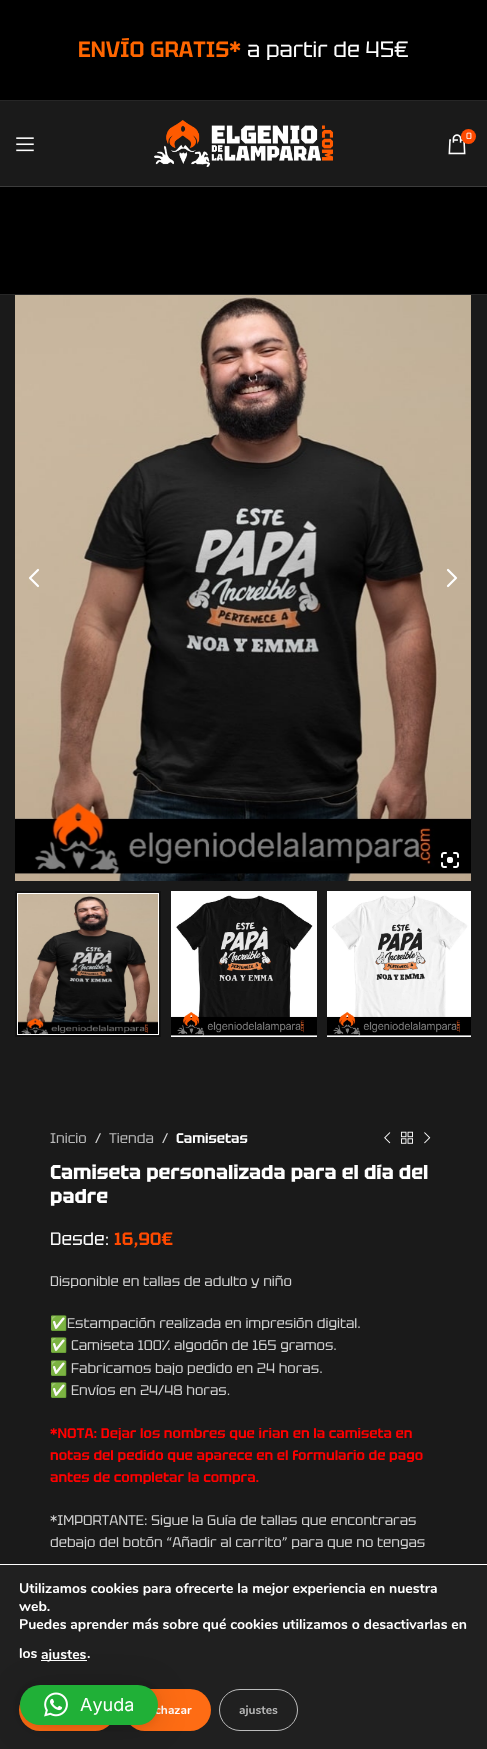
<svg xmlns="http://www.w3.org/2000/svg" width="487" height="1749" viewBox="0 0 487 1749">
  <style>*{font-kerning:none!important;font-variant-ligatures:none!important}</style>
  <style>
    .t1 { font: 600 22px Tektur; fill: #f60; }
    .t2 { font: 22px Tektur; fill: #fff; }
    .t3 { font: 9px Tektur; fill: #fff; }
    .t4 { font: 14px Tektur; fill: #bababa; }
    .t5 { font: 14px Tektur; fill: #d1d1d1; }
    .t6 { font: 600 14px Tektur; fill: #fff; }
    .t7 { font: bold 20px Tektur; fill: #fff; }
    .t8 { font: 18px Tektur; fill: #fff; }
    .t9 { font: 600 18px Tektur; fill: #ff4a00; }
    .t10 { font: 14px Noto Color Emoji; fill: #d1d1d1; }
    .t11 { font: 600 14px Tektur; fill: #f00; }
    .t12 { font: bold 14px Nunito; fill: #fff; }
    .t13 { font: bold 12px Nunito; fill: #fff; }
    .t14 { font: bold 12px Nunito; fill: #bababa; }
    .t15 { font: 18px Inter; fill: #fff; }
  </style>
  <rect width="100%" height="100%" fill="#1a1a1a"/>
  <rect x="0" y="0" width="487" height="100" fill="#000"/>
  <rect x="0" y="100" width="487" height="1" fill="#262626"/>
  <text x="78" y="57" class="t1">ENVÍO GRATIS*</text>
  <text x="247" y="57" class="t2">a partir de 45€</text>
  <rect x="0" y="186" width="487" height="1" fill="#3c3c3c"/>
  <image x="154" y="120" width="179" height="47" href="images/1.png"/>
  <image x="448" y="134" width="18" height="21" href="images/2.png"/>
  <circle cx="468.5" cy="136.5" r="7.5" fill="#ff4a00"/>
  <text x="466" y="139" class="t3">0</text>
  <image x="16" y="137" width="18" height="15" href="images/3.png"/>
  <rect x="0" y="187" width="487" height="107" fill="#000"/>
  <rect x="0" y="294" width="487" height="1" fill="#262626"/>
  <image x="15" y="295" width="456" height="586" href="images/4.png"/>
  <path d="M38 570L30 578L38 586" fill="none" stroke="#fff" stroke-width="2.2" stroke-linecap="round" stroke-linejoin="round"/>
  <path d="M448 570L456 578L448 586" fill="none" stroke="#fff" stroke-width="2.2" stroke-linecap="round" stroke-linejoin="round"/>
  <image x="441" y="852" width="18" height="16" href="images/5.png"/>
  <image x="18" y="894" width="140" height="140" href="images/6.png"/>
  <rect x="17" y="893" width="142" height="142" fill="none" stroke="#fff" stroke-width="2"/>
  <rect x="16" y="892" width="144" height="144" fill="none" stroke="#111" stroke-width="2"/>
  <image x="171" y="891" width="146" height="146" href="images/7.png"/>
  <image x="327" y="891" width="144" height="146" href="images/8.png"/>
  <text x="50" y="1143" class="t4">Inicio</text>
  <text x="95" y="1143" class="t5">/</text>
  <text x="109" y="1143" class="t4">Tienda</text>
  <text x="162" y="1143" class="t5">/</text>
  <text x="176" y="1143" class="t6">Camisetas</text>
  <image x="384" y="1132" width="7" height="12" href="images/9.png"/>
  <image x="401" y="1131" width="12" height="13" href="images/10.png"/>
  <image x="424" y="1132" width="7" height="12" href="images/11.png"/>
  <text x="50" y="1179" class="t7">Camiseta personalizada para el día del</text>
  <text x="50" y="1203" class="t7">padre</text>
  <text x="50" y="1245" class="t8">Desde:</text>
  <text x="114" y="1245" class="t9">16,90€</text>
  <text x="50" y="1286" class="t5">Disponible en tallas de adulto y niño</text>
  <text x="50" y="1328" class="t10">✅</text>
  <text x="67" y="1328" class="t5">Estampación realizada en impresión digital.</text>
  <text x="50" y="1350" class="t10">✅</text>
  <text x="71" y="1350" class="t5">Camiseta 100% algodón de 165 gramos.</text>
  <text x="50" y="1373" class="t10">✅</text>
  <text x="71" y="1373" class="t5">Fabricamos bajo pedido en 24 horas.</text>
  <text x="50" y="1395" class="t10">✅</text>
  <text x="71" y="1395" class="t5">Envíos en 24/48 horas.</text>
  <text x="50" y="1438" class="t11">*NOTA: Dejar los nombres que irian en la camiseta en</text>
  <text x="50" y="1460" class="t11">notas del pedido que aparece en el formulario de pago</text>
  <text x="50" y="1482" class="t11">antes de completar la compra.</text>
  <text x="50" y="1525" class="t5">*IMPORTANTE: Sigue la Guía de tallas que encontraras</text>
  <text x="50" y="1547" class="t5">debajo del botón “Añadir al carrito” para que no tengas</text>
  <rect x="0" y="1565" width="487" height="184" fill="#202020"/>
  <rect x="0" y="1564" width="487" height="1" fill="#fff"/>
  <text x="19" y="1593" class="t12">Utilizamos cookies para ofrecerte la mejor experiencia en nuestra</text>
  <text x="19" y="1611" class="t12">web.</text>
  <text x="19" y="1629" class="t12">Puedes aprender más sobre qué cookies utilizamos o desactivarlas en</text>
  <text x="19" y="1658" class="t12">los</text>
  <rect x="41" y="1660" width="46" height="1" fill="#fff"/>
  <text x="41" y="1659" class="t12">ajustes</text>
  <text x="87" y="1658" class="t12">.</text>
  <rect x="19" y="1689" width="97" height="42" rx="21" fill="#fe6c14"/>
  <rect x="124" y="1689" width="87" height="42" rx="21" fill="#fe6c14"/>
  <text x="155" y="1714" class="t13">chazar</text>
  <rect x="219.5" y="1689.5" width="78" height="41" rx="20.5" fill="none" stroke="#bcbcbc"/>
  <text x="239" y="1714" class="t14">ajustes</text>
  <rect x="20" y="1687" width="138" height="40" rx="20" fill="#00000029" filter="blur(16px)"/>
  <rect x="20" y="1686" width="138" height="40" rx="20" fill="#0000000f" filter="blur(3px)"/>
  <rect x="20" y="1685" width="138" height="40" rx="20" fill="#20b037"/>
  <image x="44" y="1692" width="24" height="25" href="images/12.png"/>
  <text x="80" y="1711" class="t15">Ayuda</text>
</svg>
